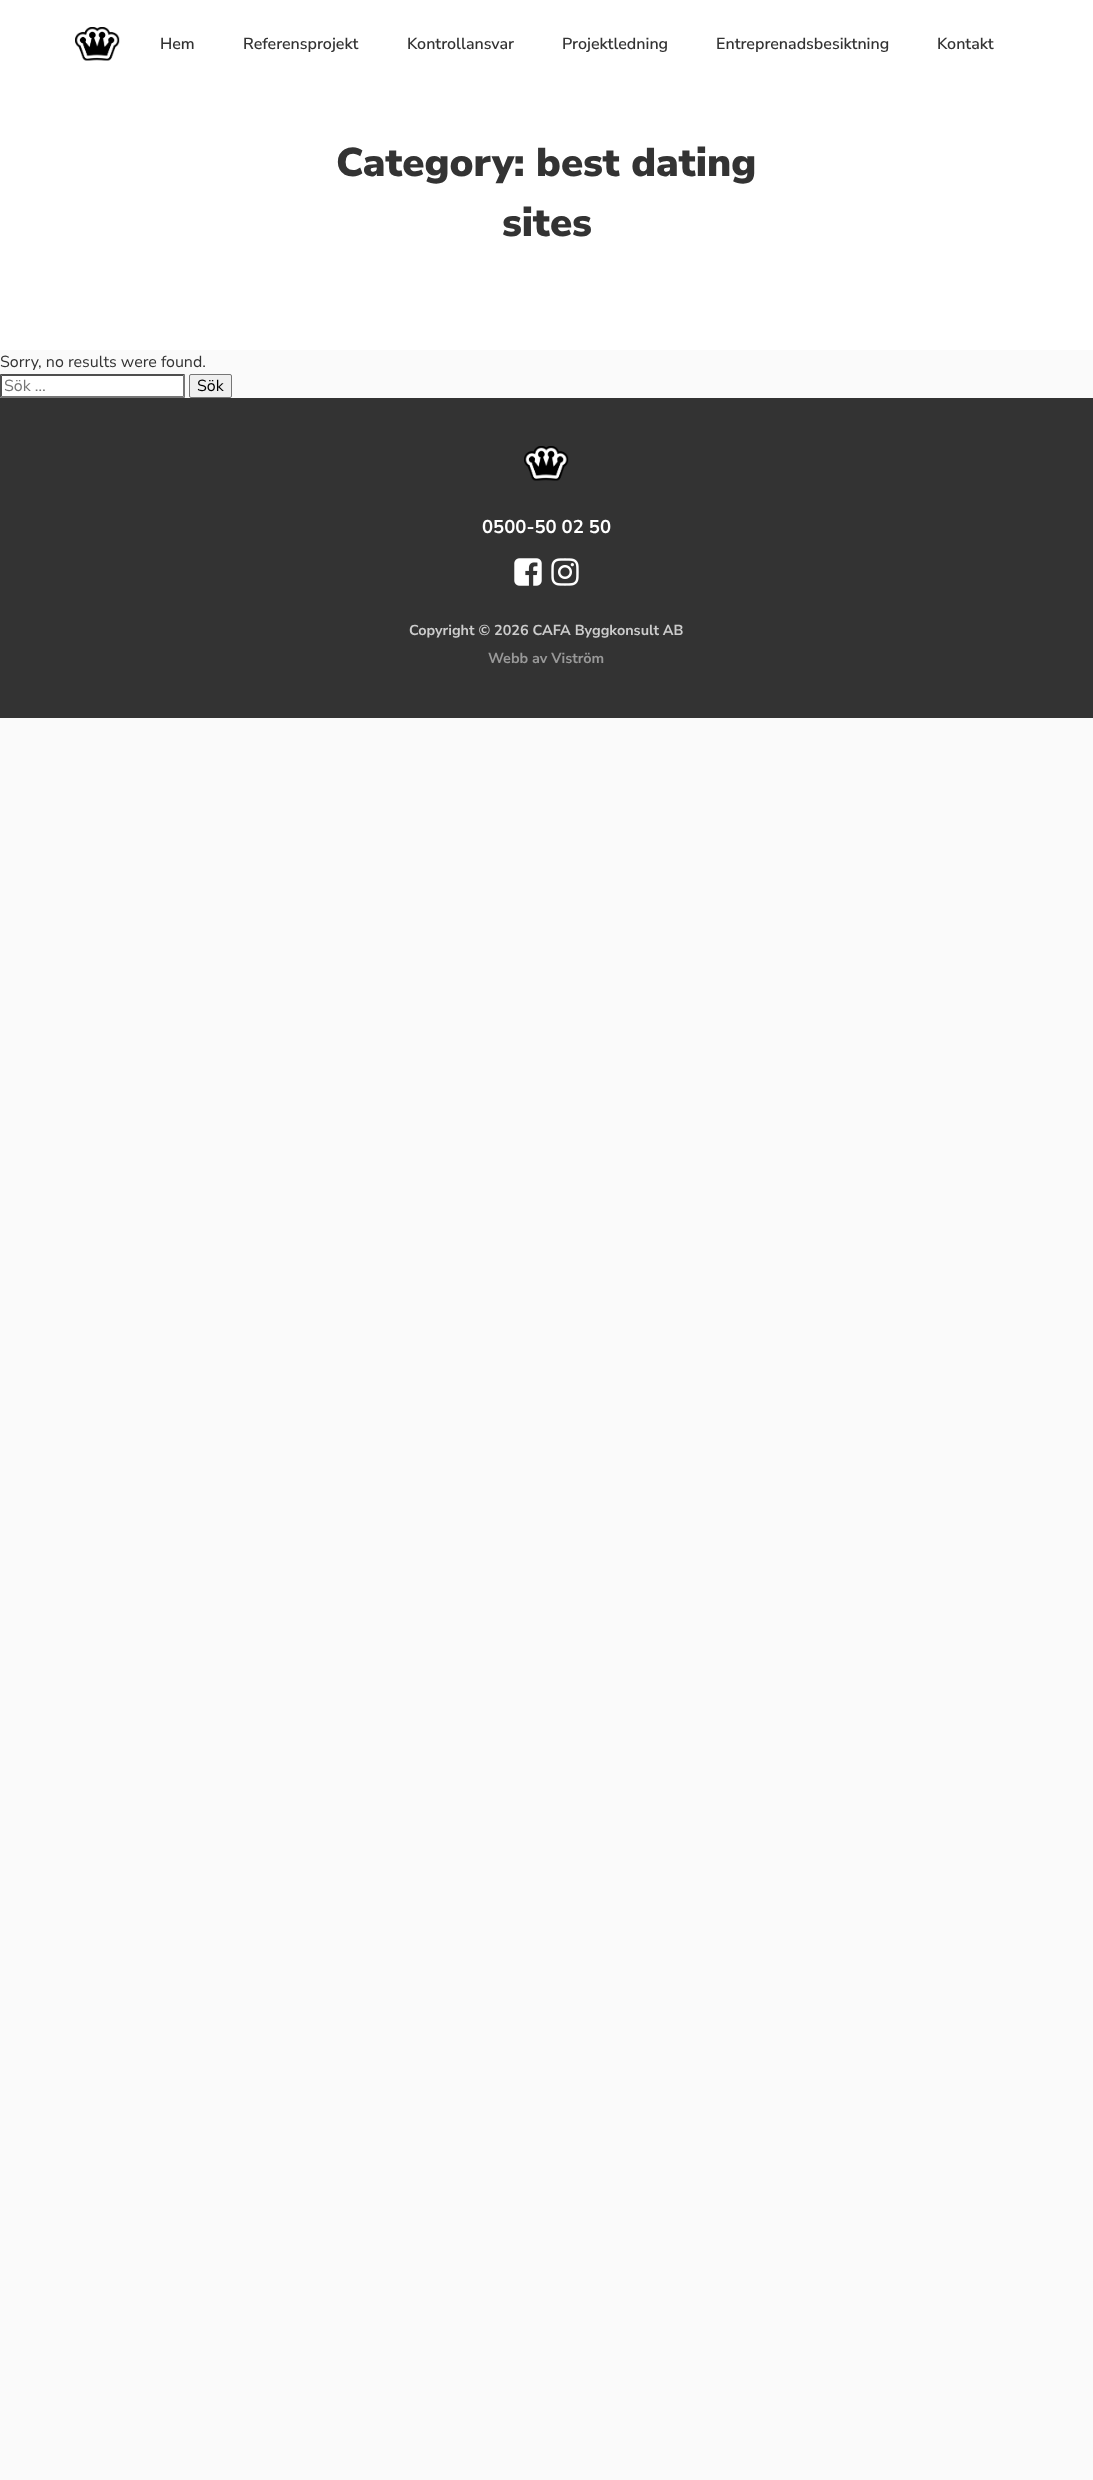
<svg xmlns="http://www.w3.org/2000/svg" width="1093" height="2480" viewBox="0 0 1093 2480">
  <style>
    .t1 { font: 600 16px Nunito Sans; fill: #333; }
    .t2 { font: 900 40px Nunito Sans; fill: #333; }
    .t3 { font: 16px Nunito Sans; fill: #333; }
    .t4 { font: 16px Nunito Sans; fill: #757575; }
    .t5 { font: 16px Nunito Sans; fill: #000; }
    .t6 { font: bold 18.5px Nunito Sans; fill: #fff; }
    .t7 { font: bold 14.4px Nunito Sans; fill: #ccc; }
    .t8 { font: bold 14.4px Nunito Sans; fill: #999; }
  </style>
  <rect width="100%" height="100%" fill="#fafafa"/>
  <rect x="0" y="0" width="1093" height="350" fill="#fff"/>
  <image x="75" y="27" width="45" height="34" href="images/1.png"/>
  <text x="160" y="49" class="t1">Hem</text>
  <text x="243" y="49" class="t1">Referensprojekt</text>
  <text x="407" y="49" class="t1">Kontrollansvar</text>
  <text x="562" y="49" class="t1">Projektledning</text>
  <text x="716" y="49" class="t1">Entreprenadsbesiktning</text>
  <text x="937" y="49" class="t1">Kontakt</text>
  <text x="336" y="176" class="t2">Category: best dating</text>
  <text x="502" y="236" class="t2">sites</text>
  <text x="0" y="367" class="t3">Sorry, no results were found.</text>
  <rect x="0" y="374" width="185" height="24" fill="#fff"/>
  <path d="M0 374H185L183 376H2Z" fill="#4f4f4f"/>
  <path d="M185 374V398L183 396V376Z" fill="#767676"/>
  <path d="M185 398H0L2 396H183Z" fill="#767676"/>
  <path d="M0 398V374L2 376V396Z" fill="#4f4f4f"/>
  <text x="4" y="391" class="t4">Sök …</text>
  <rect x="189.5" y="374.5" width="42" height="23" rx="1.5" fill="#efefef" stroke="#767676"/>
  <text x="197" y="391" class="t5">Sök</text>
  <rect x="0" y="398" width="1093" height="320" fill="#333"/>
  <image x="524" y="446" width="45" height="35" href="images/2.png"/>
  <text x="482" y="533" class="t6">0500-50 02 50</text>
  <image x="514" y="558" width="28" height="28" href="images/3.png"/>
  <image x="551" y="558" width="28" height="28" href="images/4.png"/>
  <text x="409" y="635" class="t7">Copyright © 2026 CAFA Byggkonsult AB</text>
  <text x="488" y="663" class="t8">Webb av Viström</text>
</svg>
